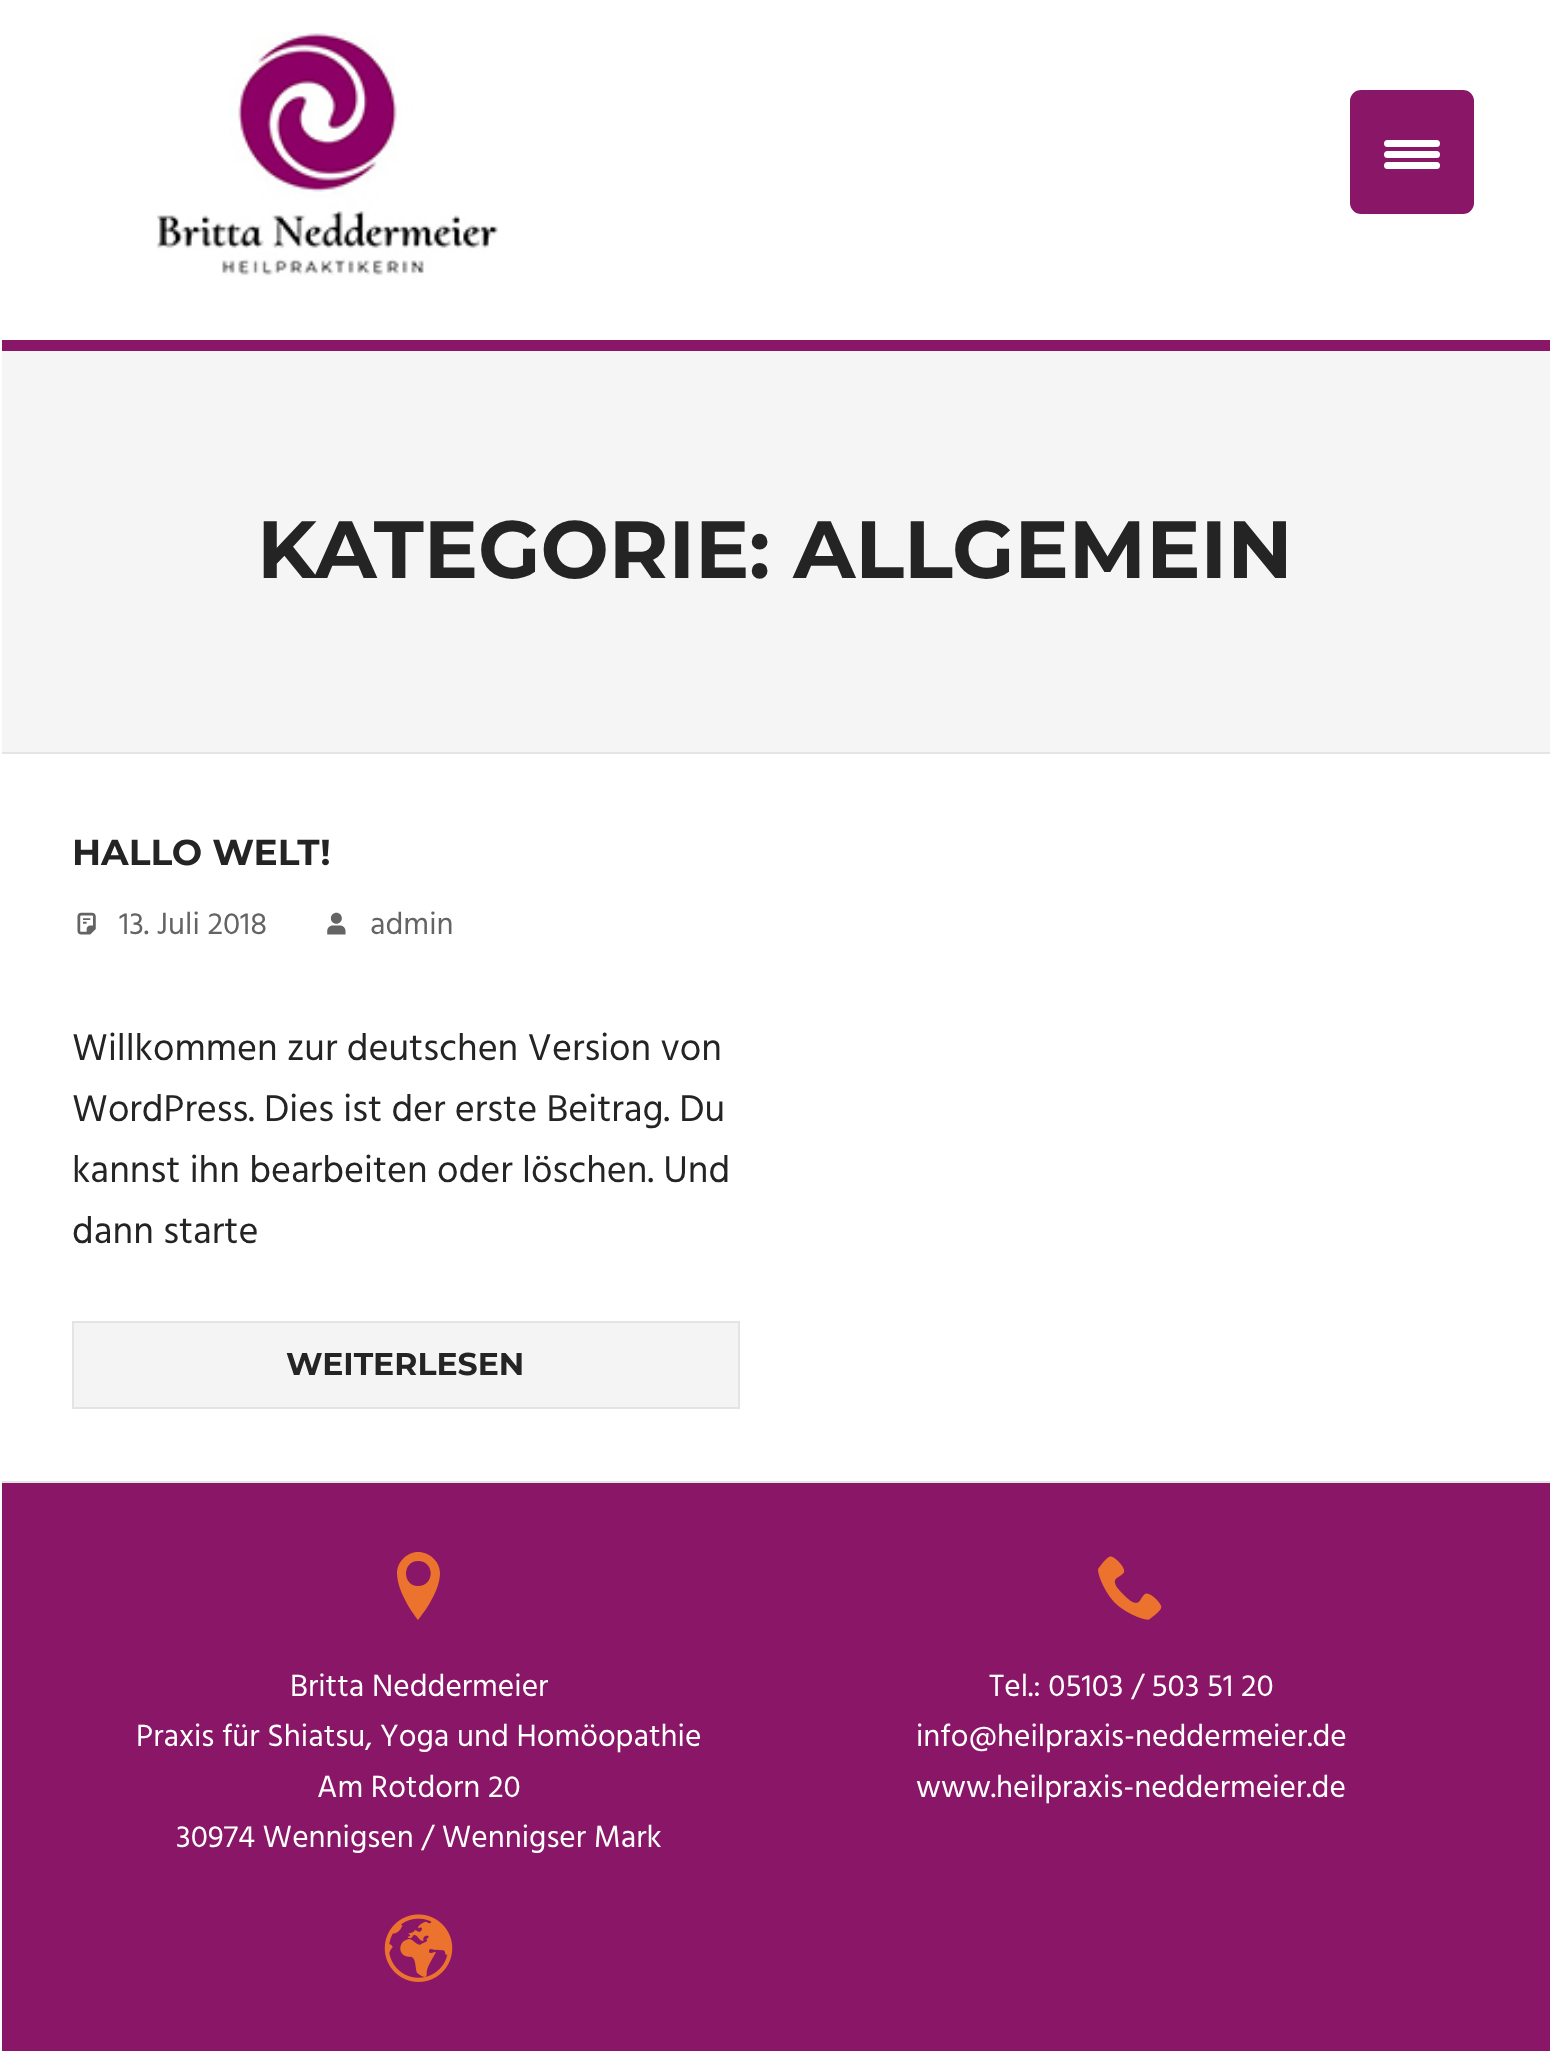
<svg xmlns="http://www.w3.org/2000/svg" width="1550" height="2051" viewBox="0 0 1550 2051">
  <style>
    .t1 { font: 100 81px Montserrat; fill: #242424; }
    .t2 { font: 100 36px Montserrat; fill: #242424; }
    .t3 { font: 31.5px Hind; fill: #646464; }
    .t4 { font: 38.25px Hind; fill: #242424; }
    .t5 { font: 100 31.5px Montserrat; fill: #242424; }
    .t6 { font: 31.5px Hind; fill: #fff; }
  </style>
  <rect width="100%" height="100%" fill="#fff"/>
  <rect x="1350" y="90" width="124" height="124" rx="11" fill="#8a1667"/>
  <rect x="1384" y="151" width="56" height="7" rx="3.5" fill="#fff"/>
  <rect x="1384" y="140" width="56" height="7" rx="3.5" fill="#fff"/>
  <rect x="1384" y="162" width="56" height="7" rx="3.5" fill="#fff"/>
  <rect x="0" y="752" width="1550" height="2" fill="#e5e5e5"/>
  <rect x="0" y="1481" width="1550" height="2" fill="#e4e4e4"/>
  <rect x="0" y="752" width="2" height="731" fill="#fff"/>
  <rect x="2" y="340" width="1548" height="11" fill="#8a1667"/>
  <image x="156" y="32" width="342" height="244" href="images/1.png"/>
  <rect x="2" y="351" width="1548" height="401" fill="#f5f5f5"/>
  <text x="257" y="578" class="t1">KATEGORIE: ALLGEMEIN</text>
  <text x="72" y="865" class="t2">HALLO WELT!</text>
  <image x="77" y="912" width="19" height="23" href="images/2.png"/>
  <text x="119" y="934" class="t3">13. Juli 2018</text>
  <image x="327" y="912" width="19" height="23" href="images/3.png"/>
  <text x="370" y="934" class="t3">admin</text>
  <text x="72" y="1060" class="t4">Willkommen zur deutschen Version von</text>
  <text x="72" y="1121" class="t4">WordPress. Dies ist der erste Beitrag. Du</text>
  <text x="72" y="1182" class="t4">kannst ihn bearbeiten oder löschen. Und</text>
  <text x="72" y="1243" class="t4">dann starte</text>
  <rect x="73" y="1322" width="666" height="86" fill="#f4f4f4" stroke="#e4e4e4" stroke-width="2"/>
  <text x="286" y="1375" class="t5">WEITERLESEN</text>
  <rect x="2" y="1483" width="1548" height="568" fill="#8a1667"/>
  <path d="M418 1552C430 1552 440 1562 440 1573C440 1594 418 1620 418 1620C418 1620 397 1594 397 1573C397 1562 407 1552 418 1552ZM418 1586C435 1586 435 1561 418 1561C402 1561 402 1586 418 1586Z" fill="#ec732e"/>
  <text x="290" y="1696" class="t6">Britta Neddermeier</text>
  <text x="136" y="1746" class="t6">Praxis für Shiatsu, Yoga und Homöopathie</text>
  <text x="317" y="1797" class="t6">Am Rotdorn 20</text>
  <text x="176" y="1847" class="t6">30974 Wennigsen / Wennigser Mark</text>
  <image x="1098" y="1556" width="64" height="64" href="images/4.png"/>
  <text x="989" y="1696" class="t6">Tel.: 05103 / 503 51 20</text>
  <text x="916" y="1746" class="t6">info@heilpraxis-neddermeier.de</text>
  <text x="916" y="1797" class="t6">www.heilpraxis-neddermeier.de</text>
  <image x="384" y="1914" width="69" height="68" href="images/5.png"/>
</svg>
